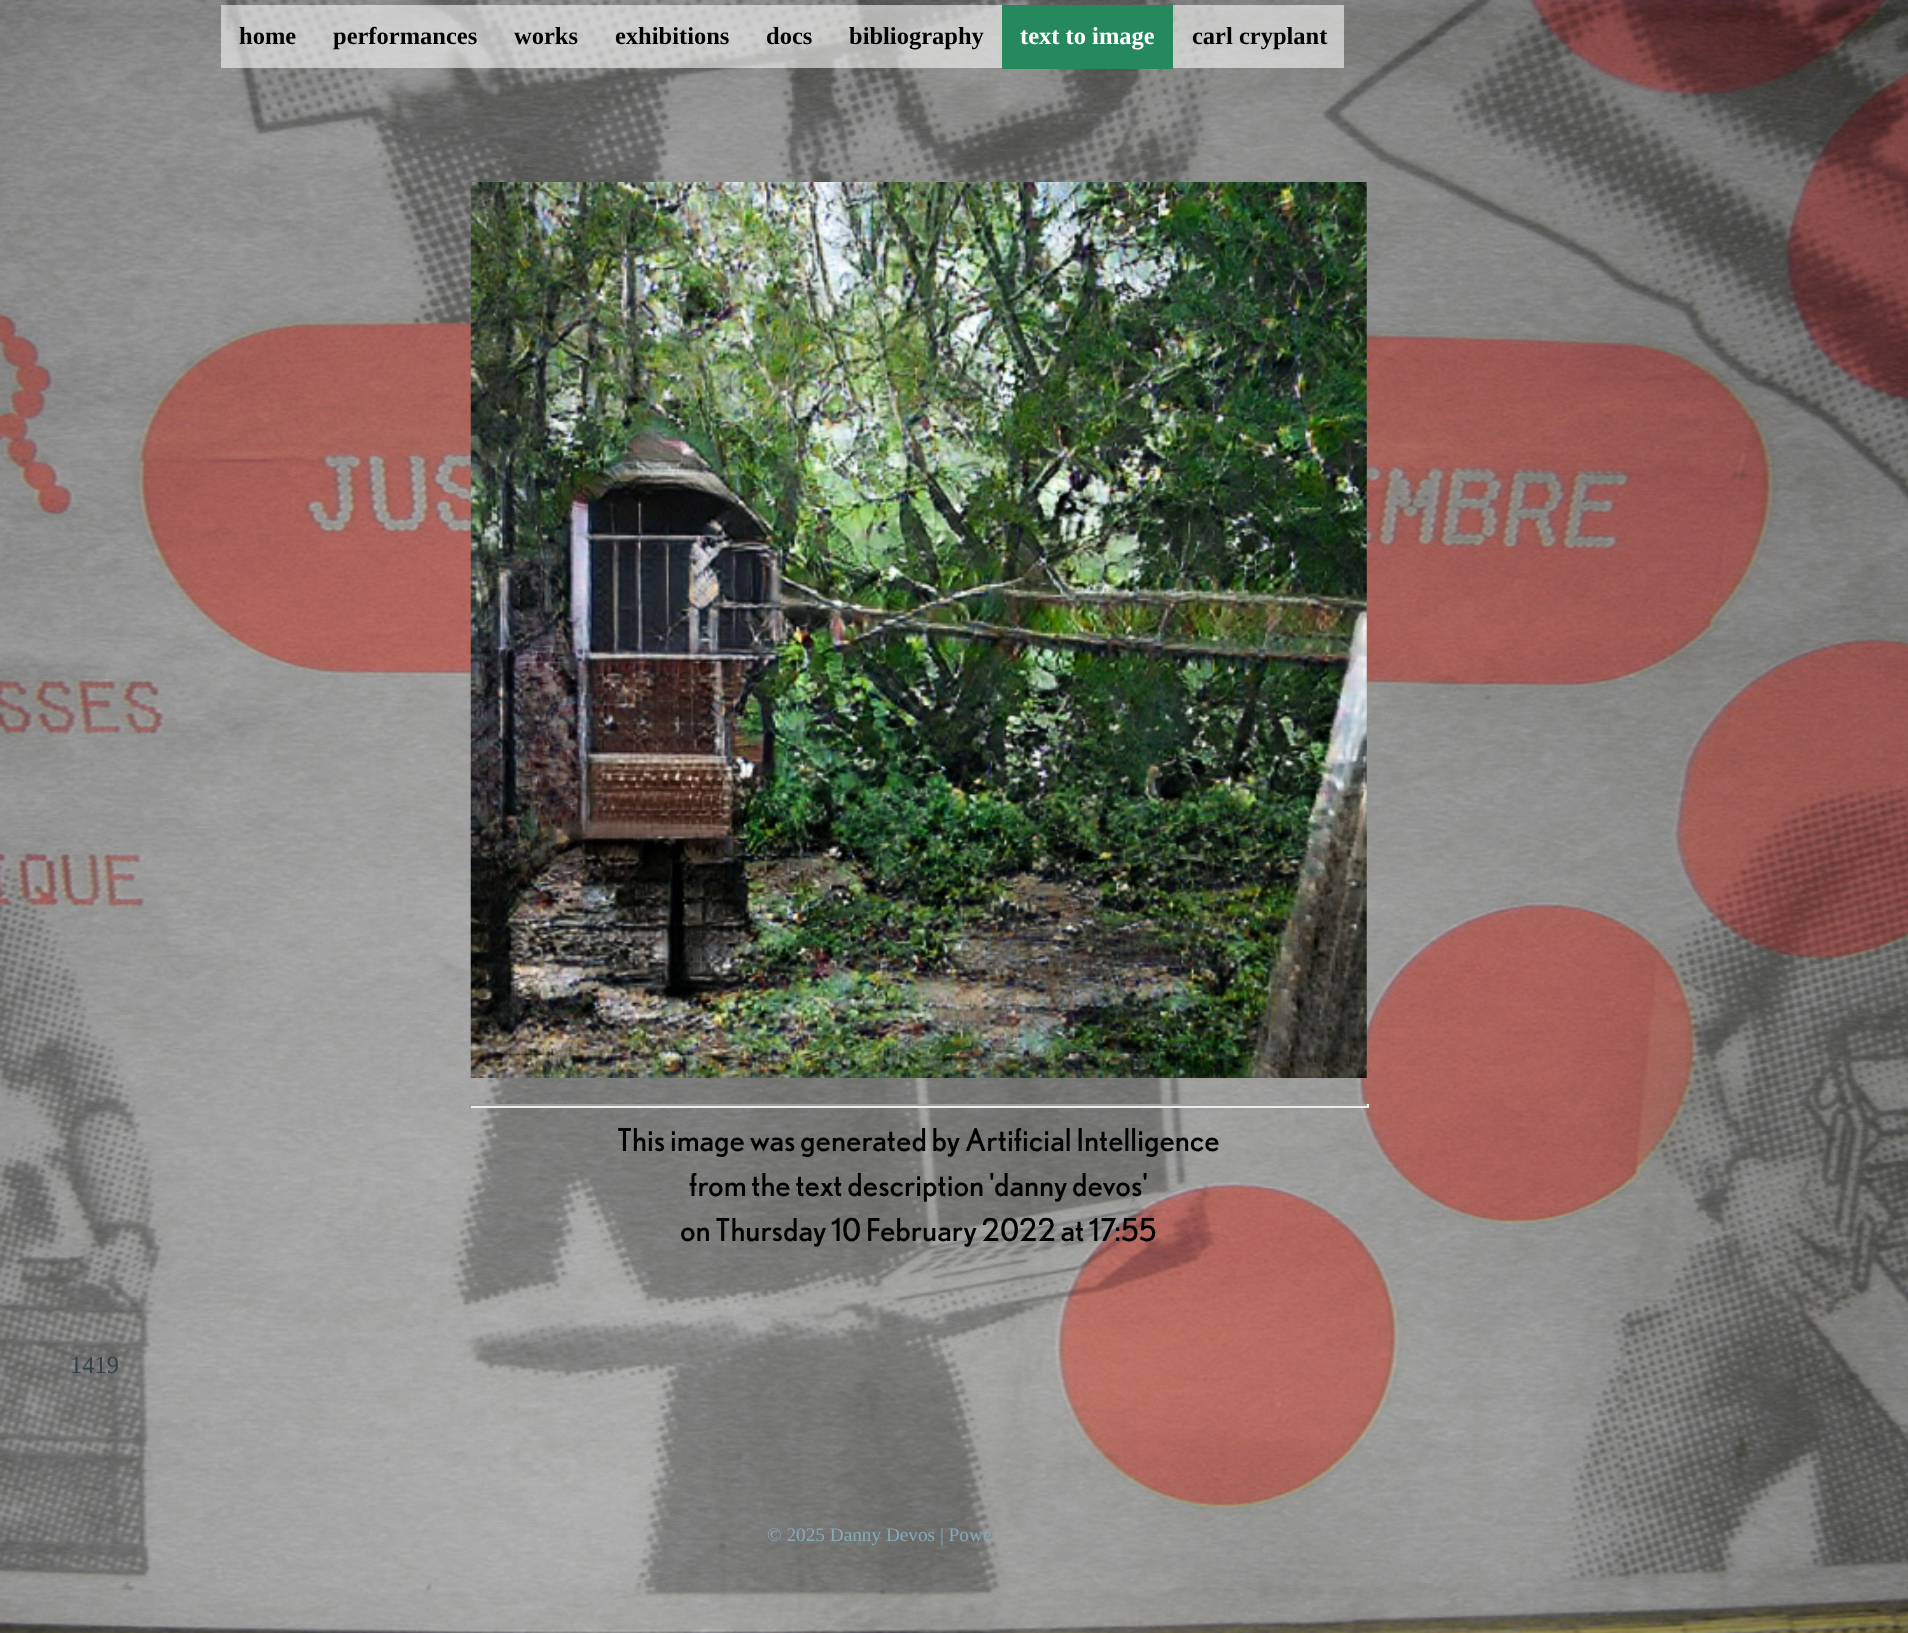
<svg xmlns="http://www.w3.org/2000/svg" width="1908" height="1633" viewBox="0 0 1908 1633">
  <style>
    .t1 { font: bold 24.5px Liberation Serif; fill: #000; }
    .t2 { font: bold 24.5px Liberation Serif; fill: #fff; }
    .t3 { font: 31.5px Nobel; fill: #000; }
    .t4 { font: 24.5px Liberation Serif; fill: #2f4248; }
    .t5 { font: 19.25px Liberation Serif; fill: #85aaba; }
  </style>
  <rect width="100%" height="100%" fill="#fff"/>
  <image x="0" y="0" width="1908" height="1633" href="images/1.png"/>
  <rect x="221" y="5" width="1123" height="63" fill="#f8f8f899"/>
  <text x="239" y="44" class="t1">home</text>
  <text x="333" y="44" class="t1">performances</text>
  <text x="514" y="44" class="t1">works</text>
  <text x="615" y="44" class="t1">exhibitions</text>
  <text x="766" y="44" class="t1">docs</text>
  <text x="849" y="44" class="t1">bibliography</text>
  <rect x="1002" y="5" width="171" height="64" fill="#26895e"/>
  <text x="1020" y="44" class="t2">text to image</text>
  <text x="1192" y="44" class="t1">carl cryplant</text>
  <image x="470" y="182" width="897" height="896" href="images/2.png"/>
  <rect x="469" y="1104" width="900" height="2" fill="#9f9f9f"/>
  <rect x="1367" y="1104" width="2" height="4" fill="#eee"/>
  <rect x="469" y="1106" width="900" height="2" fill="#eee"/>
  <rect x="469" y="1104" width="2" height="4" fill="#9f9f9f"/>
  <text x="617" y="1151" class="t3">This image was generated by Artificial Intelligence</text>
  <text x="689" y="1196" class="t3">from the text description 'danny devos'</text>
  <text x="680" y="1241" class="t3">on Thursday 10 February 2022 at 17:55</text>
  <text x="70" y="1373" class="t4">1419</text>
  <text x="767" y="1541" class="t5">© 2025 Danny Devos | Powe</text>
</svg>
